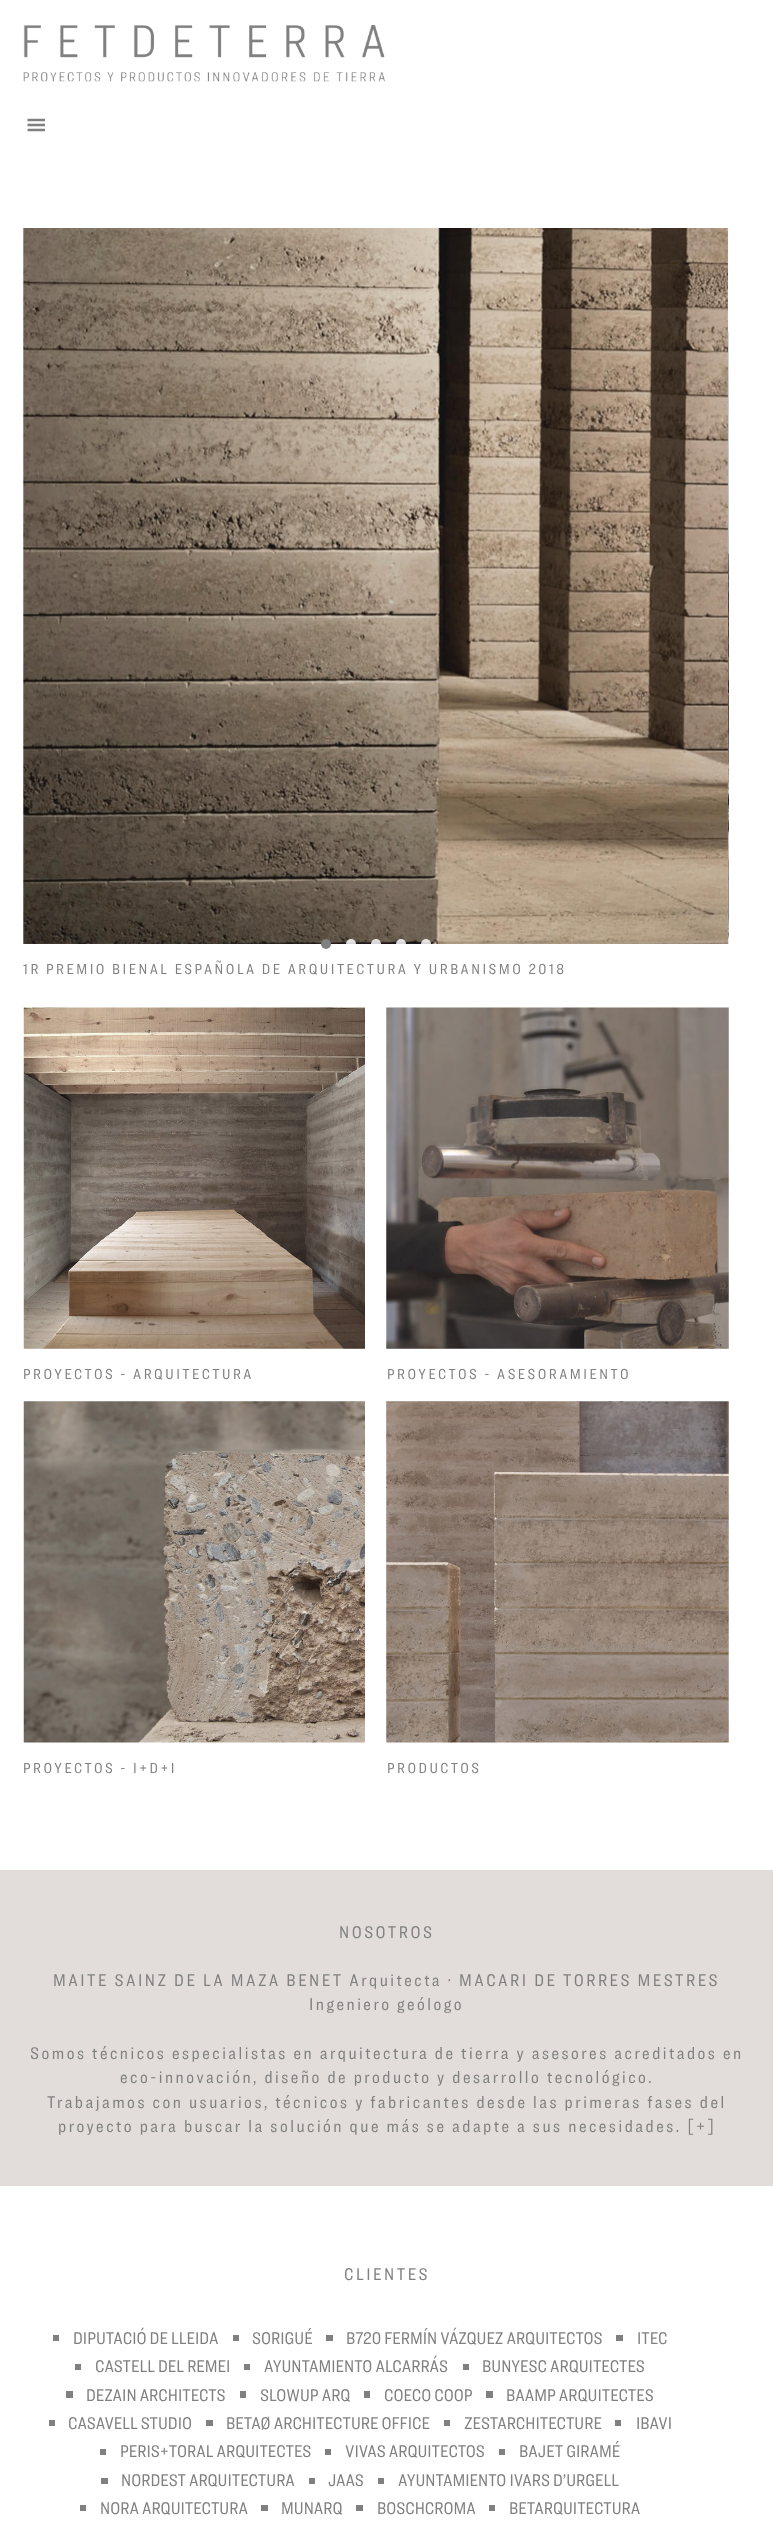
<svg xmlns="http://www.w3.org/2000/svg" width="773" height="2536" viewBox="0 0 773 2536">
  <style>
    .t1 { font: 15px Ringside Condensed; letter-spacing: 2.5px; fill: #808080; }
    .t2 { font: 17.5px Ringside Condensed; letter-spacing: 2.5px; fill: #808080; }
    .t3 { font: 17.5px Ringside Condensed; fill: #808080; }
  </style>
  <rect width="100%" height="100%" fill="#fff"/>
  <image x="23" y="25" width="362" height="57" href="images/1.png"/>
  <image x="27" y="118" width="18" height="14" href="images/2.png"/>
  <image x="23" y="228" width="706" height="716" href="images/4.png"/>
  <circle cx="326" cy="944" r="5" fill="#808080"/>
  <circle cx="351" cy="944" r="5" fill="#ffffffd4"/>
  <circle cx="376" cy="944" r="5" fill="#ffffffd4"/>
  <circle cx="401" cy="944" r="5" fill="#ffffffd4"/>
  <circle cx="426" cy="944" r="5" fill="#ffffffd4"/>
  <image x="728" y="228" width="1" height="710" href="images/3.png"/>
  <text x="23" y="974" class="t1">1R PREMIO BIENAL ESPAÑOLA DE ARQUITECTURA Y URBANISMO 2018</text>
  <image x="23" y="1007" width="342" height="342" href="images/5.png"/>
  <text x="23" y="1379" class="t1">PROYECTOS - ARQUITECTURA</text>
  <image x="23" y="1401" width="342" height="342" href="images/6.png"/>
  <text x="23" y="1773" class="t1">PROYECTOS - I+D+I</text>
  <image x="386" y="1007" width="343" height="342" href="images/7.png"/>
  <text x="387" y="1379" class="t1">PROYECTOS - ASESORAMIENTO</text>
  <image x="386" y="1401" width="343" height="342" href="images/8.png"/>
  <text x="387" y="1773" class="t1">PRODUCTOS</text>
  <rect x="0" y="1870" width="773" height="316" fill="#e2dddb"/>
  <text x="339" y="1938" class="t2">NOSOTROS</text>
  <text x="53" y="1986" class="t2">MAITE SAINZ DE LA MAZA BENET Arquitecta · MACARI DE TORRES MESTRES</text>
  <text x="309" y="2010" class="t2">Ingeniero geólogo</text>
  <text x="30" y="2059" class="t2">Somos técnicos especialistas en arquitectura de tierra y asesores acreditados en</text>
  <text x="120" y="2083" class="t2">eco-innovación, diseño de producto y desarrollo tecnológico.</text>
  <text x="47" y="2108" class="t2">Trabajamos con usuarios, técnicos y fabricantes desde las primeras fases del</text>
  <text x="58" y="2132" class="t2">proyecto para buscar la solución que más se adapte a sus necesidades. [+]</text>
  <text x="344" y="2280" class="t2">CLIENTES</text>
  <rect x="53" y="2335" width="6" height="6" fill="#808080"/>
  <text x="73" y="2344" class="t3">DIPUTACIÓ DE LLEIDA</text>
  <rect x="233" y="2335" width="6" height="6" fill="#808080"/>
  <text x="252" y="2344" class="t3">SORIGUÉ</text>
  <rect x="326" y="2335" width="7" height="6" fill="#808080"/>
  <text x="346" y="2344" class="t3">B720 FERMÍN VÁZQUEZ ARQUITECTOS</text>
  <rect x="616" y="2335" width="7" height="6" fill="#808080"/>
  <text x="637" y="2344" class="t3">ITEC</text>
  <rect x="75" y="2364" width="6" height="6" fill="#808080"/>
  <text x="95" y="2372" class="t3">CASTELL DEL REMEI</text>
  <rect x="244" y="2364" width="6" height="6" fill="#808080"/>
  <text x="264" y="2372" class="t3">AYUNTAMIENTO ALCARRÁS</text>
  <rect x="463" y="2364" width="6" height="6" fill="#808080"/>
  <text x="482" y="2372" class="t3">BUNYESC ARQUITECTES</text>
  <rect x="66" y="2391" width="7" height="7" fill="#808080"/>
  <text x="86" y="2401" class="t3">DEZAIN ARCHITECTS</text>
  <rect x="240" y="2391" width="6" height="7" fill="#808080"/>
  <text x="260" y="2401" class="t3">SLOWUP ARQ</text>
  <rect x="364" y="2391" width="6" height="7" fill="#808080"/>
  <text x="384" y="2401" class="t3">COECO COOP</text>
  <rect x="486" y="2391" width="7" height="7" fill="#808080"/>
  <text x="506" y="2401" class="t3">BAAMP ARQUITECTES</text>
  <rect x="49" y="2420" width="6" height="6" fill="#808080"/>
  <text x="68" y="2429" class="t3">CASAVELL STUDIO</text>
  <rect x="206" y="2420" width="7" height="6" fill="#808080"/>
  <text x="226" y="2429" class="t3">BETAØ ARCHITECTURE OFFICE</text>
  <rect x="444" y="2420" width="6" height="6" fill="#808080"/>
  <text x="464" y="2429" class="t3">ZESTARCHITECTURE</text>
  <rect x="615" y="2420" width="6" height="6" fill="#808080"/>
  <text x="636" y="2429" class="t3">IBAVI</text>
  <rect x="100" y="2449" width="6" height="6" fill="#808080"/>
  <text x="120" y="2457" class="t3">PERIS+TORAL ARQUITECTES</text>
  <rect x="325" y="2449" width="6" height="6" fill="#808080"/>
  <text x="345" y="2457" class="t3">VIVAS ARQUITECTOS</text>
  <rect x="499" y="2449" width="6" height="6" fill="#808080"/>
  <text x="519" y="2457" class="t3">BAJET GIRAMÉ</text>
  <rect x="101" y="2478" width="7" height="6" fill="#808080"/>
  <text x="121" y="2486" class="t3">NORDEST ARQUITECTURA</text>
  <rect x="309" y="2478" width="6" height="6" fill="#808080"/>
  <text x="328" y="2486" class="t3">JAAS</text>
  <rect x="378" y="2478" width="6" height="6" fill="#808080"/>
  <text x="398" y="2486" class="t3">AYUNTAMIENTO IVARS D’URGELL</text>
  <rect x="80" y="2505" width="6" height="6" fill="#808080"/>
  <text x="100" y="2514" class="t3">NORA ARQUITECTURA</text>
  <rect x="261" y="2505" width="7" height="6" fill="#808080"/>
  <text x="281" y="2514" class="t3">MUNARQ</text>
  <rect x="356" y="2505" width="7" height="6" fill="#808080"/>
  <text x="377" y="2514" class="t3">BOSCHCROMA</text>
  <rect x="489" y="2505" width="6" height="6" fill="#808080"/>
  <text x="509" y="2514" class="t3">BETARQUITECTURA</text>
</svg>
